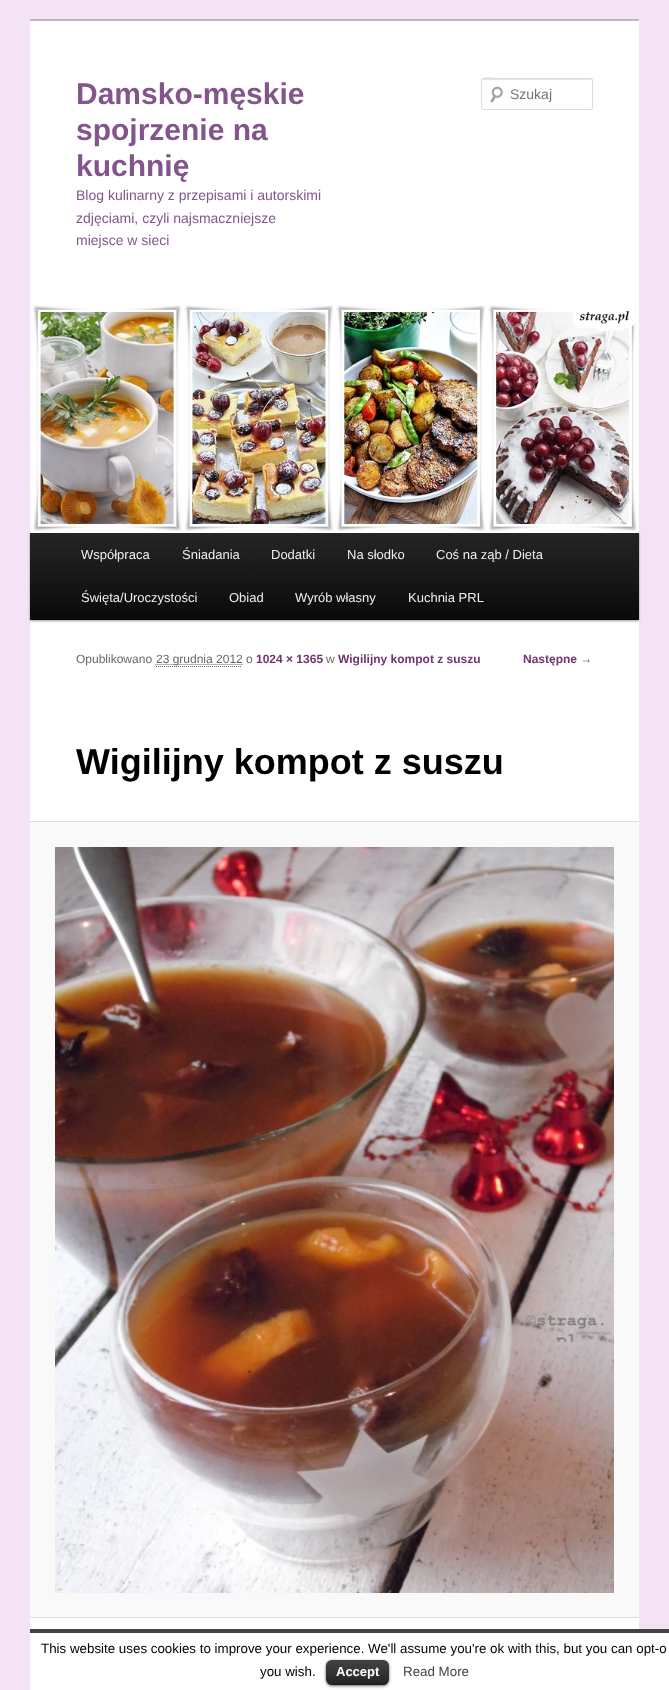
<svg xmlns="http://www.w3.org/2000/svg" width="669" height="1690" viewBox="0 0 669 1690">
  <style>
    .t1 { font: bold 30px Liberation Sans; fill: #83558c; }
    .t2 { font: 14px Liberation Sans; fill: #83558c; }
    .t3 { font: 14px Liberation Sans; fill: #757575; }
    .t4 { font: 13px Liberation Sans; fill: #eee; }
    .t5 { font: 12px Liberation Sans; fill: #666; }
    .t6 { font: bold 12px Liberation Sans; fill: #723472; }
    .t7 { font: bold 36px Liberation Sans; fill: #000; }
    .t8 { font: 13.35px Liberation Sans; fill: #000; }
    .t9 { font: bold 13px Liberation Sans; fill: #fff; }
    .t10 { font: 13.35px Liberation Sans; fill: #444; }
  </style>
  <defs>
    <linearGradient id="g1" gradientUnits="userSpaceOnUse" x1="335" y1="533" x2="335" y2="620"><stop offset="0" stop-color="#252525"/><stop offset="1" stop-color="#0a0a0a"/></linearGradient>
  </defs>
  <rect width="100%" height="100%" fill="#f4e3f4"/>
  <rect x="30" y="21" width="609" height="1608" fill="#fff"/>
  <rect x="30" y="19" width="609" height="2" fill="#bbb"/>
  <text x="76" y="104" class="t1">Damsko-męskie</text>
  <text x="76" y="140" class="t1">spojrzenie na</text>
  <text x="76" y="176" class="t1">kuchnię</text>
  <text x="76" y="200" class="t2">Blog kulinarny z przepisami i autorskimi</text>
  <text x="76" y="223" class="t2">zdjęciami, czyli najsmaczniejsze</text>
  <text x="76" y="245" class="t2">miejsce w sieci</text>
  <image x="490" y="86" width="13" height="17" href="images/1.png"/>
  <path d="M483 80H592V81L591 79H501C497 79 482 74 482 81C482 80 482 80 483 80Z" fill="#e6e6e6"/>
  <rect x="481.5" y="78.5" width="111" height="31" rx="1.5" fill="none" stroke="#ddd"/>
  <text x="510" y="99" class="t3">Szukaj</text>
  <rect x="30" y="534" width="609" height="87" fill="#00000066" filter="blur(1px)"/>
  <image x="30" y="305" width="609" height="228" href="images/2.png"/>
  <rect x="30" y="533" width="609" height="87" fill="url(#g1)"/>
  <text x="81" y="559" class="t4">Współpraca</text>
  <text x="182" y="559" class="t4">Śniadania</text>
  <text x="271" y="559" class="t4">Dodatki</text>
  <text x="347" y="559" class="t4">Na słodko</text>
  <text x="436" y="559" class="t4">Coś na ząb / Dieta</text>
  <text x="81" y="602" class="t4">Święta/Uroczystości</text>
  <text x="229" y="602" class="t4">Obiad</text>
  <text x="295" y="602" class="t4">Wyrób własny</text>
  <text x="408" y="602" class="t4">Kuchnia PRL</text>
  <text x="76" y="663" class="t5">Opublikowano</text>
  <path d="M155.5 664.5H242.5" fill="none" stroke="#666" stroke-dasharray="1 1"/>
  <text x="156" y="663" class="t5">23 grudnia 2012 o</text>
  <path d="M156 666.5H242" fill="none" stroke="#666" stroke-dasharray="1 1"/>
  <text x="256" y="663" class="t6">1024 × 1365</text>
  <text x="326" y="663" class="t5">w</text>
  <text x="338" y="663" class="t6">Wigilijny kompot z suszu</text>
  <text x="76" y="774" class="t7">Wigilijny kompot z suszu</text>
  <rect x="30" y="822" width="609" height="795" fill="#f9f9f9"/>
  <rect x="30" y="821" width="609" height="1" fill="#ddd"/>
  <rect x="30" y="1617" width="609" height="1" fill="#ddd"/>
  <image x="55" y="847" width="559" height="746" href="images/3.png"/>
  <text x="523" y="663" class="t6">Następne →</text>
  <rect x="30" y="1633" width="639" height="57" fill="#fff"/>
  <rect x="30" y="1629" width="639" height="4" fill="#444"/>
  <text x="41" y="1653" class="t8">This website uses cookies to improve your experience. We'll assume you're ok with this, but you can opt-o</text>
  <text x="260" y="1676" class="t8">you wish.</text>
  <rect x="326" y="1661" width="63" height="25" rx="6" fill="#00000099" filter="blur(1.5px)"/>
  <rect x="326" y="1660" width="63" height="25" rx="6" fill="#000"/>
  <image x="326" y="1660" width="63" height="25" href="images/4.png"/>
  <rect x="329" y="1684" width="57" height="1" fill="#00000040"/>
  <text x="336" y="1676" class="t9">Accept</text>
  <text x="403" y="1676" class="t10">Read More</text>
</svg>
